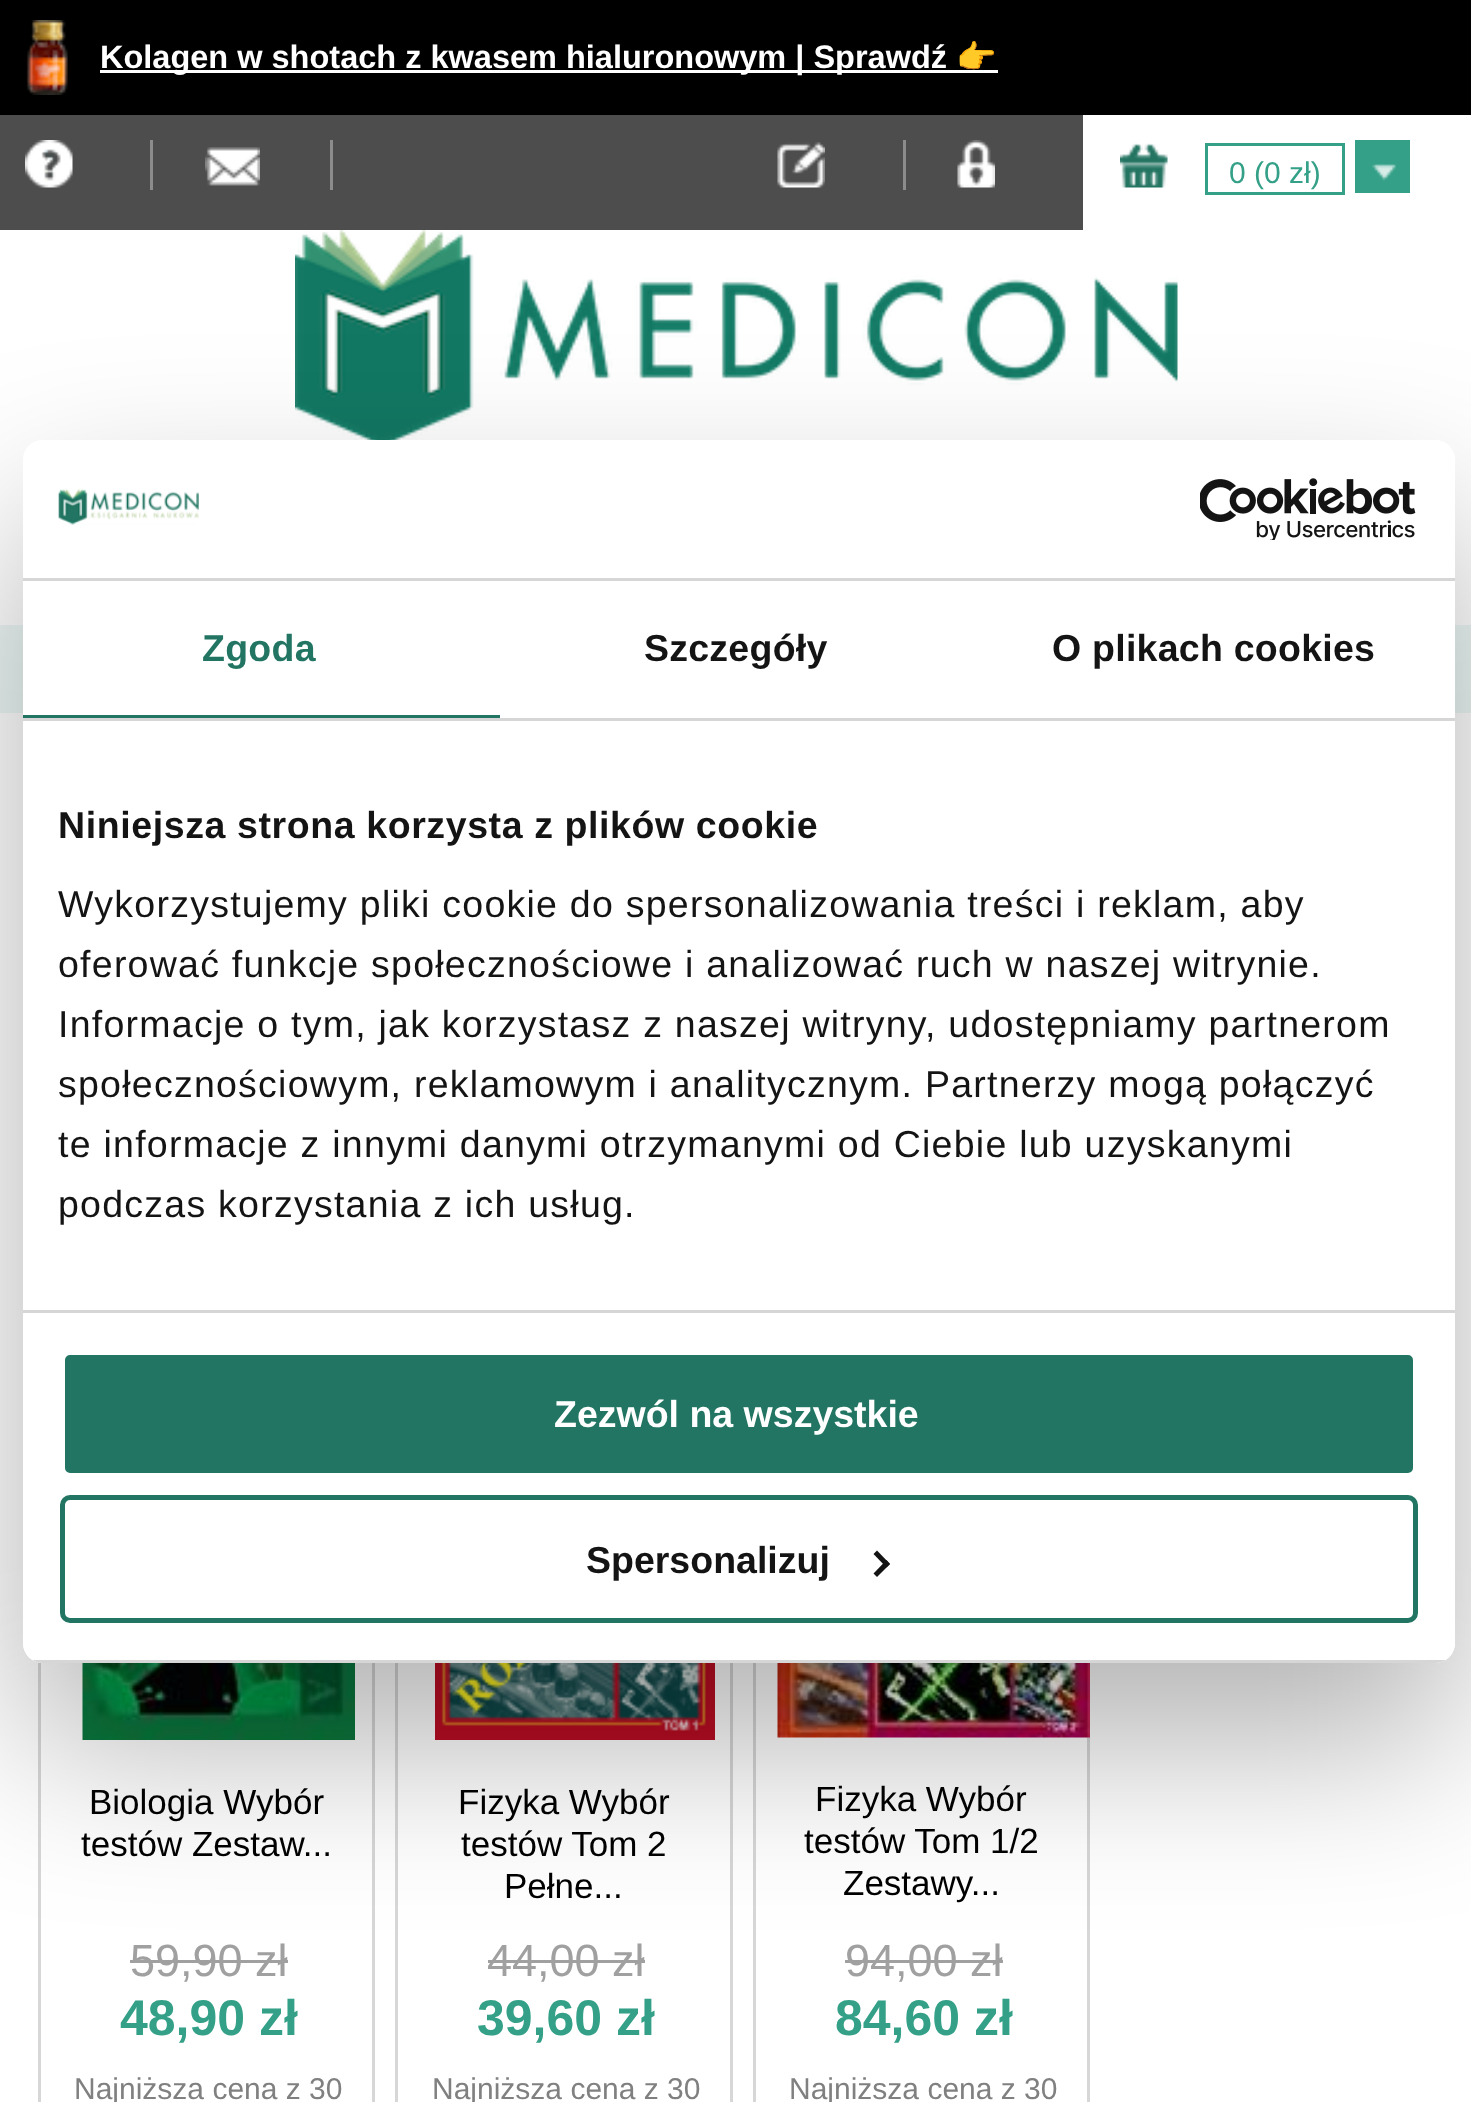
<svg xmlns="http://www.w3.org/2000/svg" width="1471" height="2102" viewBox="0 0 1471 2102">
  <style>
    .t1 { font: bold 32.5px Liberation Sans; fill: #fff; }
    .t2 { font: bold 32.5px Noto Color Emoji; fill: #fff; }
    .t3 { font: 30px Liberation Sans; fill: #33a087; }
    .t4 { font: 35px Liberation Sans; fill: #000; }
    .t5 { font: 45px Liberation Sans; fill: #a0a0a0; }
    .t6 { font: bold 50px Liberation Sans; fill: #33a087; }
    .t7 { font: 30px Liberation Sans; fill: #808080; }
    .t8 { font: bold 37.5px Liberation Sans; letter-spacing: 0.25px; fill: #227562; }
    .t9 { font: bold 37.5px Liberation Sans; letter-spacing: 0.25px; fill: #141414; }
    .t10 { font: bold 37.5px Liberation Sans; letter-spacing: 0.6px; fill: #141414; }
    .t11 { font: 37.5px Liberation Sans; letter-spacing: 1.25px; fill: #141414; }
    .t12 { font: bold 37.5px Liberation Sans; fill: #fff; }
    .t13 { font: bold 37.5px Liberation Sans; fill: #141414; }
  </style>
  <defs>
    <clipPath id="clip1"><path d="M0 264H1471V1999H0ZM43 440H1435C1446 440 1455 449 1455 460V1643C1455 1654 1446 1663 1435 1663H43C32 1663 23 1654 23 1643V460C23 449 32 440 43 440Z" clip-rule="evenodd"/></clipPath>
    <clipPath id="clip2"><rect x="23" y="440" width="1432" height="1223" rx="20"/></clipPath>
  </defs>
  <rect width="100%" height="100%" fill="#fff"/>
  <rect x="0" y="0" width="1471" height="115" fill="#000"/>
  <image x="26" y="20" width="42" height="75" href="images/1.png"/>
  <rect x="100" y="70" width="898" height="3" fill="#fff"/>
  <text x="100" y="68" class="t1">Kolagen w shotach z kwasem hialuronowym | Sprawdź</text>
  <text x="956" y="68" class="t2">👉</text>
  <rect x="0" y="115" width="1083" height="115" fill="#4d4d4d"/>
  <image x="25" y="140" width="48" height="48" href="images/2.png"/>
  <rect x="150" y="140" width="3" height="50" fill="#8c8c8c"/>
  <image x="205" y="147" width="55" height="39" href="images/3.png"/>
  <rect x="330" y="140" width="3" height="50" fill="#8c8c8c"/>
  <image x="777" y="142" width="48" height="46" href="images/4.png"/>
  <rect x="903" y="140" width="3" height="50" fill="#8c8c8c"/>
  <image x="957" y="140" width="38" height="48" href="images/5.png"/>
  <image x="1120" y="143" width="48" height="45" href="images/6.png"/>
  <rect x="1206.5" y="144.5" width="137" height="49" fill="none" stroke="#33a087" stroke-width="3"/>
  <text x="1229" y="183" class="t3">0 (0 zł)</text>
  <rect x="1355" y="140" width="55" height="53" fill="#33a087"/>
  <image x="1372" y="164" width="24" height="17" href="images/7.png"/>
  <image x="295" y="230" width="883" height="210" href="images/8.png"/>
  <rect x="0" y="625" width="1471" height="88" fill="#edf8f6"/>
  <rect x="39.5" y="1324.5" width="334" height="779" fill="none" stroke="#d7d7d7" stroke-width="3"/>
  <image x="82" y="1663" width="273" height="77" href="images/9.png"/>
  <text x="89" y="1814" class="t4">Biologia Wybór</text>
  <text x="81" y="1856" class="t4">testów Zestaw...</text>
  <text x="130" y="1976" class="t5">59,90 zł</text>
  <rect x="130" y="1960" width="158" height="3" fill="#a0a0a0"/>
  <text x="120" y="2035" class="t6">48,90 zł</text>
  <text x="74" y="2099" class="t7">Najniższa cena z 30</text>
  <rect x="396.5" y="1324.5" width="335" height="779" fill="none" stroke="#d7d7d7" stroke-width="3"/>
  <image x="435" y="1663" width="280" height="77" href="images/10.png"/>
  <text x="458" y="1814" class="t4">Fizyka Wybór</text>
  <text x="461" y="1856" class="t4">testów Tom 2</text>
  <text x="504" y="1898" class="t4">Pełne...</text>
  <text x="487" y="1976" class="t5">44,00 zł</text>
  <rect x="488" y="1960" width="157" height="3" fill="#a0a0a0"/>
  <text x="477" y="2035" class="t6">39,60 zł</text>
  <text x="432" y="2099" class="t7">Najniższa cena z 30</text>
  <rect x="754.5" y="1324.5" width="334" height="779" fill="none" stroke="#d7d7d7" stroke-width="3"/>
  <image x="777" y="1663" width="313" height="75" href="images/11.png"/>
  <text x="815" y="1811" class="t4">Fizyka Wybór</text>
  <text x="804" y="1853" class="t4">testów Tom 1/2</text>
  <text x="843" y="1895" class="t4">Zestawy...</text>
  <text x="845" y="1976" class="t5">94,00 zł</text>
  <rect x="845" y="1960" width="158" height="3" fill="#a0a0a0"/>
  <text x="835" y="2035" class="t6">84,60 zł</text>
  <text x="789" y="2099" class="t7">Najniższa cena z 30</text>
  <g clip-path="url(#clip1)">
    <rect x="23" y="520" width="1432" height="1223" rx="20" fill="#0000004d" filter="blur(85px)"/>
  </g>
  <rect x="23" y="440" width="1432" height="1223" rx="20" fill="#fff"/>
  <rect x="23" y="578" width="1432" height="3" fill="#d6d6d6"/>
  <image x="58" y="488" width="141" height="37" href="images/12.png"/>
  <image x="1200" y="478" width="216" height="62" href="images/13.png"/>
  <rect x="23" y="718" width="1432" height="3" fill="#d6d6d6"/>
  <rect x="23" y="715" width="477" height="3" fill="#227562"/>
  <text x="202" y="661" class="t8">Zgoda</text>
  <text x="644" y="661" class="t9">Szczegóły</text>
  <text x="1052" y="661" class="t9">O plikach cookies</text>
  <rect x="23" y="1310" width="1432" height="3" fill="#d6d6d6"/>
  <text x="58" y="838" class="t10">Niniejsza strona korzysta z plików cookie</text>
  <text x="58" y="917" class="t11">Wykorzystujemy pliki cookie do spersonalizowania treści i reklam, aby</text>
  <text x="58" y="977" class="t11">oferować funkcje społecznościowe i analizować ruch w naszej witrynie.</text>
  <text x="58" y="1037" class="t11">Informacje o tym, jak korzystasz z naszej witryny, udostępniamy partnerom</text>
  <text x="58" y="1097" class="t11">społecznościowym, reklamowym i analitycznym. Partnerzy mogą połączyć</text>
  <text x="58" y="1157" class="t11">te informacje z innymi danymi otrzymanymi od Ciebie lub uzyskanymi</text>
  <text x="58" y="1217" class="t11">podczas korzystania z ich usług.</text>
  <g clip-path="url(#clip2)">
    <rect x="32" y="1660" width="1414" height="3" fill="#d6d6d6"/>
  </g>
  <rect x="62.5" y="1352.5" width="1353" height="123" rx="7.5" fill="#227562" stroke="#fff" stroke-width="5"/>
  <text x="554" y="1427" class="t12">Zezwól na wszystkie</text>
  <rect x="62.5" y="1497.5" width="1353" height="123" rx="7.5" fill="none" stroke="#227562" stroke-width="5"/>
  <text x="586" y="1573" class="t13">Spersonalizuj</text>
  <path d="M877 1550.5L890 1564L886.5 1567.5L873.5 1554Z" fill="#141414"/>
  <path d="M886.5 1560L890 1564L877 1577L873.5 1573.5Z" fill="#141414"/>
</svg>
